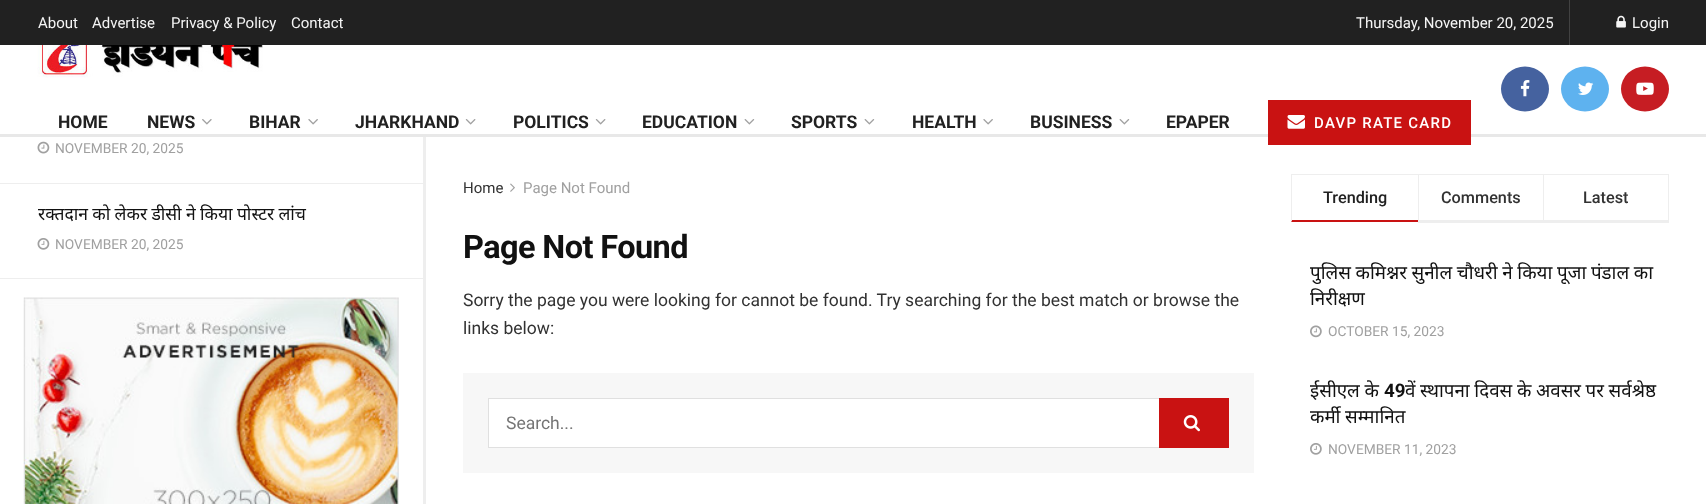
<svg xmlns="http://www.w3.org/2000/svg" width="1706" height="504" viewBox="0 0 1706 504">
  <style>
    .t1 { font: 15px Roboto; fill: #f5f5f5; }
    .t2 { font: bold 17.5px Roboto; fill: #212121; }
    .t3 { font: 500 15px Roboto; letter-spacing: 1.25px; fill: #fff; }
    .t4 { font: 15px Roboto; fill: #323232; }
    .t5 { font: 15px Roboto; fill: #a0a0a0; }
    .t6 { font: bold 32.5px Roboto; letter-spacing: -0.6px; fill: #111; }
    .t7 { font: 17.5px Roboto; fill: #323232; }
    .t8 { font: 17.5px Roboto; fill: #757575; }
    .t9 { font: 500 16.25px Roboto; fill: #212121; }
    .t10 { font: 500 16.25px Roboto; fill: #323232; }
    .t11 { font: 18.75px Noto Sans; fill: #111; }
    .t12 { font: 13.75px Roboto; fill: #a0a0a0; }
    .t13 { font: bold 18.75px Roboto; fill: #111; }
    .t14 { font: 17.5px Noto Sans; fill: #111; }
  </style>
  <rect width="100%" height="100%" fill="#fff"/>
  <rect x="0" y="0" width="1706" height="45" fill="#212121"/>
  <text x="38" y="28" class="t1">About</text>
  <text x="92" y="28" class="t1">Advertise</text>
  <text x="171" y="28" class="t1">Privacy &amp; Policy</text>
  <text x="291" y="28" class="t1">Contact</text>
  <rect x="1569" y="0" width="1" height="45" fill="#424242"/>
  <text x="1356" y="28" class="t1">Thursday, November 20, 2025</text>
  <image x="1616" y="15" width="10" height="13" href="images/1.png"/>
  <text x="1632" y="28" class="t1">Login</text>
  <rect x="0" y="134" width="1706" height="3" fill="#e8e8e8"/>
  <ellipse cx="1525" cy="89" rx="24" ry="22.5" fill="#45629f"/>
  <image x="1520" y="80" width="10" height="17" href="images/2.png"/>
  <ellipse cx="1585" cy="89" rx="24" ry="22.5" fill="#5eb2ef"/>
  <image x="1578" y="82" width="16" height="13" href="images/3.png"/>
  <ellipse cx="1645" cy="89" rx="24" ry="22.5" fill="#c61d23"/>
  <image x="1636" y="82" width="18" height="13" href="images/4.png"/>
  <image x="37" y="45" width="226" height="33" href="images/5.png"/>
  <text x="58" y="128" class="t2">HOME</text>
  <text x="147" y="128" class="t2">NEWS</text>
  <image x="202" y="119" width="10" height="6" href="images/6.png"/>
  <text x="249" y="128" class="t2">BIHAR</text>
  <image x="308" y="119" width="10" height="6" href="images/7.png"/>
  <text x="355" y="128" class="t2">JHARKHAND</text>
  <image x="465" y="119" width="11" height="6" href="images/8.png"/>
  <text x="513" y="128" class="t2">POLITICS</text>
  <image x="595" y="119" width="11" height="6" href="images/8.png"/>
  <text x="642" y="128" class="t2">EDUCATION</text>
  <image x="744" y="119" width="11" height="6" href="images/9.png"/>
  <text x="791" y="128" class="t2">SPORTS</text>
  <image x="864" y="119" width="11" height="6" href="images/9.png"/>
  <text x="912" y="128" class="t2">HEALTH</text>
  <image x="983" y="119" width="10" height="6" href="images/7.png"/>
  <text x="1030" y="128" class="t2">BUSINESS</text>
  <image x="1119" y="119" width="11" height="6" href="images/9.png"/>
  <text x="1166" y="128" class="t2">EPAPER</text>
  <rect x="1268" y="100" width="203" height="45" fill="#c91212"/>
  <image x="1287" y="115" width="18" height="14" href="images/10.png"/>
  <text x="1314" y="128" class="t3">DAVP RATE CARD</text>
  <text x="463" y="193" class="t4">Home</text>
  <image x="510" y="183" width="5" height="9" href="images/11.png"/>
  <text x="523" y="193" class="t5">Page Not Found</text>
  <text x="463" y="258" class="t6">Page Not Found</text>
  <text x="463" y="306" class="t7">Sorry the page you were looking for cannot be found. Try searching for the best match or browse the</text>
  <text x="463" y="334" class="t7">links below:</text>
  <rect x="463" y="373" width="791" height="100" fill="#f7f7f7"/>
  <rect x="489" y="399" width="670" height="48" fill="#fff"/>
  <rect x="488.5" y="398.5" width="740" height="49" fill="none" stroke="#e0e0e0"/>
  <text x="506" y="429" class="t8">Search...</text>
  <rect x="1159" y="398" width="70" height="50" fill="#c91212"/>
  <image x="1183" y="415" width="17" height="17" href="images/12.png"/>
  <rect x="1291" y="174" width="378" height="1" fill="#eee"/>
  <path d="M1418 222H1291L1292 220H1418Z" fill="#c91212"/>
  <path d="M1291 222V174L1292 175V220Z" fill="#eee"/>
  <text x="1323" y="203" class="t9">Trending</text>
  <rect x="1418" y="220" width="125" height="3" fill="#eee"/>
  <rect x="1418" y="174" width="1" height="49" fill="#eee"/>
  <text x="1441" y="203" class="t10">Comments</text>
  <rect x="1668" y="174" width="1" height="49" fill="#eee"/>
  <rect x="1543" y="220" width="126" height="3" fill="#eee"/>
  <rect x="1543" y="174" width="1" height="49" fill="#eee"/>
  <text x="1583" y="203" class="t10">Latest</text>
  <text x="1310" y="279" word-spacing="-0.25" class="t11">पुलिस कमिश्नर सुनील चौधरी ने किया पूजा पंडाल का</text>
  <text x="1310" y="305" class="t11">निरीक्षण</text>
  <image x="1310" y="325" width="12" height="13" href="images/13.png"/>
  <text x="1328" y="336" class="t12">OCTOBER 15, 2023</text>
  <text x="1310" y="397" word-spacing="-0.25" class="t11">ईसीएल के</text>
  <text x="1384" y="397" class="t13">49</text>
  <text x="1405" y="397" word-spacing="-0.25" class="t11">वें स्थापना दिवस के अवसर पर सर्वश्रेष्ठ</text>
  <text x="1310" y="423" word-spacing="-0.25" class="t11">कर्मी सम्मानित</text>
  <image x="1310" y="443" width="12" height="12" href="images/14.png"/>
  <text x="1328" y="454" class="t12">NOVEMBER 11, 2023</text>
  <rect x="423" y="137" width="3" height="367" fill="#eee"/>
  <rect x="0" y="183" width="423" height="1" fill="#eee"/>
  <image x="37" y="141" width="13" height="13" href="images/15.png"/>
  <text x="55" y="153" class="t12">NOVEMBER 20, 2025</text>
  <rect x="0" y="278" width="423" height="1" fill="#eee"/>
  <text x="38" y="220" word-spacing="-0.25" class="t14">रक्तदान को लेकर डीसी ने किया पोस्टर लांच</text>
  <image x="37" y="238" width="13" height="12" href="images/16.png"/>
  <text x="55" y="249" class="t12">NOVEMBER 20, 2025</text>
  <image x="23" y="297" width="376" height="207" href="images/17.png"/>
</svg>
